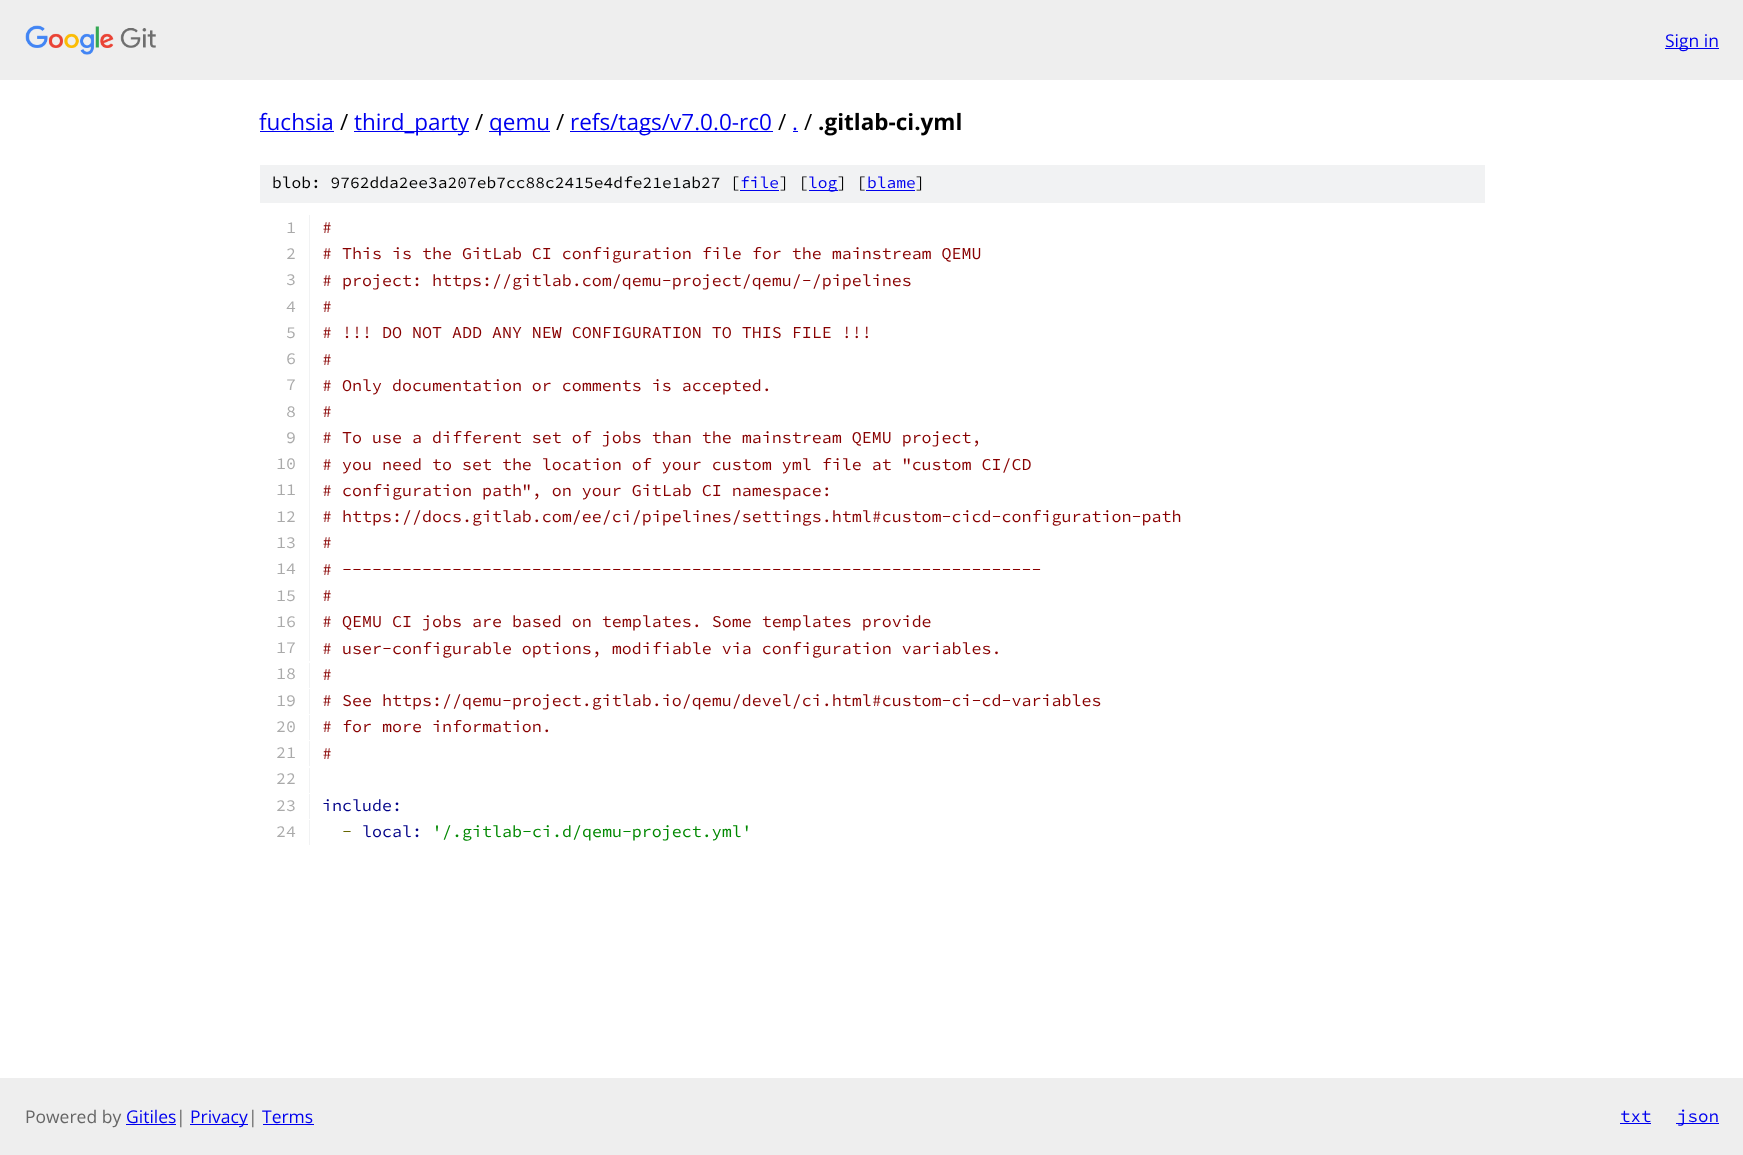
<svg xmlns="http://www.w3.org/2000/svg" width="1743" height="1155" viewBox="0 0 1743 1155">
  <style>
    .t1 { font: 17.5px Open Sans; fill: #00e; }
    .t2 { font: 22.5px Open Sans; fill: #00e; }
    .t3 { font: 22.5px Open Sans; fill: #000; }
    .t4 { font: bold 22.5px Open Sans; fill: #000; }
    .t5 { font: 200 16.25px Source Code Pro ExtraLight; fill: #000; }
    .t6 { font: 200 16.25px Source Code Pro ExtraLight; fill: #00e; }
    .t7 { font: 200 16.67px Source Code Pro ExtraLight; fill: #aaa; }
    .t8 { font: 200 16.67px Source Code Pro ExtraLight; fill: #800; }
    .t9 { font: 200 16.67px Source Code Pro ExtraLight; fill: #008; }
    .t10 { font: 200 16.67px Source Code Pro ExtraLight; fill: #660; }
    .t11 { font: 200 16.67px Source Code Pro ExtraLight; fill: #080; }
    .t12 { font: 17.5px Open Sans; fill: #666; }
    .t13 { font: 200 17.5px Source Code Pro ExtraLight; fill: #00e; }
  </style>
  <rect width="100%" height="100%" fill="#fff"/>
  <rect x="0" y="0" width="1743" height="80" fill="#eee"/>
  <image x="25" y="25" width="131" height="30" href="images/1.png"/>
  <rect x="1665" y="48" width="54" height="1" fill="#00e"/>
  <text x="1665" y="47" class="t1">Sign in</text>
  <text x="259" y="130" class="t2">fuchsia</text>
  <rect x="260" y="131" width="74" height="1" fill="#00e"/>
  <text x="340" y="130" class="t3">/</text>
  <rect x="354" y="131" width="115" height="1" fill="#00e"/>
  <text x="354" y="130" class="t2">third_party</text>
  <text x="475" y="130" class="t3">/</text>
  <rect x="489" y="131" width="61" height="1" fill="#00e"/>
  <text x="489" y="130" class="t2">qemu</text>
  <text x="556" y="130" class="t3">/</text>
  <rect x="570" y="131" width="203" height="1" fill="#00e"/>
  <text x="570" y="130" class="t2">refs/tags/v7.0.0-rc0</text>
  <text x="778" y="130" class="t3">/</text>
  <text x="792" y="130" class="t2">.</text>
  <rect x="793" y="131" width="5" height="1" fill="#00e"/>
  <text x="804" y="130" class="t3">/</text>
  <text x="818" y="130" class="t4">.gitlab-ci.yml</text>
  <rect x="260" y="165" width="1225" height="38" fill="#f1f2f3"/>
  <text x="272" y="188" class="t5">blob: 9762dda2ee3a207eb7cc88c2415e4dfe21e1ab27 [</text>
  <text x="740" y="188" class="t6">file</text>
  <rect x="740" y="190" width="39" height="1" fill="#00e"/>
  <text x="779" y="188" class="t5">] [</text>
  <rect x="809" y="190" width="29" height="1" fill="#00e"/>
  <text x="808" y="188" class="t6">log</text>
  <text x="837" y="188" class="t5">] [</text>
  <text x="867" y="188" class="t6">blame</text>
  <rect x="866" y="190" width="49" height="1" fill="#00e"/>
  <text x="915" y="188" class="t5">]</text>
  <rect x="309" y="215" width="1" height="446" fill="#f1f2f3"/>
  <text x="286" y="233" class="t7">1</text>
  <text x="322" y="233" class="t8">#</text>
  <text x="286" y="259" class="t7">2</text>
  <text x="322" y="259" class="t8"># This is the GitLab CI configuration file for the mainstream QEMU</text>
  <text x="286" y="285" class="t7">3</text>
  <text x="322" y="286" class="t8"># project: https://gitlab.com/qemu-project/qemu/-/pipelines</text>
  <text x="286" y="312" class="t7">4</text>
  <text x="322" y="312" class="t8">#</text>
  <text x="286" y="338" class="t7">5</text>
  <text x="322" y="338" class="t8"># !!! DO NOT ADD ANY NEW CONFIGURATION TO THIS FILE !!!</text>
  <text x="286" y="364" class="t7">6</text>
  <text x="322" y="365" class="t8">#</text>
  <text x="286" y="390" class="t7">7</text>
  <text x="322" y="391" class="t8"># Only documentation or comments is accepted.</text>
  <text x="286" y="417" class="t7">8</text>
  <text x="322" y="417" class="t8">#</text>
  <text x="286" y="443" class="t7">9</text>
  <text x="322" y="443" class="t8"># To use a different set of jobs than the mainstream QEMU project,</text>
  <text x="276" y="469" class="t7">10</text>
  <text x="322" y="470" class="t8"># you need to set the location of your custom yml file at "custom CI/CD</text>
  <text x="276" y="495" class="t7">11</text>
  <text x="322" y="496" class="t8"># configuration path", on your GitLab CI namespace:</text>
  <text x="276" y="522" class="t7">12</text>
  <text x="322" y="522" class="t8"># https://docs.gitlab.com/ee/ci/pipelines/settings.html#custom-cicd-configuration-path</text>
  <text x="276" y="548" class="t7">13</text>
  <text x="322" y="548" class="t8">#</text>
  <text x="276" y="574" class="t7">14</text>
  <text x="322" y="575" class="t8"># ----------------------------------------------------------------------</text>
  <text x="276" y="601" class="t7">15</text>
  <text x="322" y="601" class="t8">#</text>
  <text x="276" y="627" class="t7">16</text>
  <text x="322" y="627" class="t8"># QEMU CI jobs are based on templates. Some templates provide</text>
  <text x="276" y="653" class="t7">17</text>
  <text x="322" y="654" class="t8"># user-configurable options, modifiable via configuration variables.</text>
  <rect x="309" y="663" width="1" height="25" fill="#f1f2f3"/>
  <text x="276" y="679" class="t7">18</text>
  <text x="322" y="680" class="t8">#</text>
  <rect x="309" y="689" width="1" height="25" fill="#f1f2f3"/>
  <text x="276" y="706" class="t7">19</text>
  <text x="322" y="706" class="t8"># See https://qemu-project.gitlab.io/qemu/devel/ci.html#custom-ci-cd-variables</text>
  <rect x="309" y="715" width="1" height="25" fill="#f1f2f3"/>
  <text x="276" y="732" class="t7">20</text>
  <text x="322" y="732" class="t8"># for more information.</text>
  <rect x="309" y="741" width="1" height="25" fill="#f1f2f3"/>
  <text x="276" y="758" class="t7">21</text>
  <text x="322" y="759" class="t8">#</text>
  <rect x="309" y="768" width="1" height="25" fill="#f1f2f3"/>
  <text x="276" y="784" class="t7">22</text>
  <rect x="309" y="794" width="1" height="25" fill="#f1f2f3"/>
  <text x="276" y="811" class="t7">23</text>
  <text x="322" y="811" class="t9">include:</text>
  <rect x="309" y="820" width="1" height="25" fill="#f1f2f3"/>
  <text x="276" y="837" class="t7">24</text>
  <text x="342" y="837" class="t10">-</text>
  <text x="362" y="837" class="t9">local:</text>
  <text x="432" y="837" class="t11">'/.gitlab-ci.d/qemu-project.yml'</text>
  <rect x="0" y="1078" width="1743" height="77" fill="#eee"/>
  <text x="25" y="1123" class="t12">Powered by</text>
  <text x="126" y="1123" class="t1">Gitiles</text>
  <rect x="126" y="1124" width="50" height="1" fill="#00e"/>
  <text x="176" y="1123" class="t12">|</text>
  <rect x="190" y="1124" width="58" height="1" fill="#00e"/>
  <text x="190" y="1123" class="t1">Privacy</text>
  <text x="248" y="1123" class="t12">|</text>
  <text x="262" y="1123" class="t1">Terms</text>
  <rect x="263" y="1124" width="51" height="1" fill="#00e"/>
  <text x="1620" y="1122" class="t13">txt</text>
  <rect x="1620" y="1123" width="31" height="1" fill="#00e"/>
  <rect x="1676" y="1123" width="43" height="1" fill="#00e"/>
  <text x="1677" y="1122" class="t13">json</text>
</svg>
